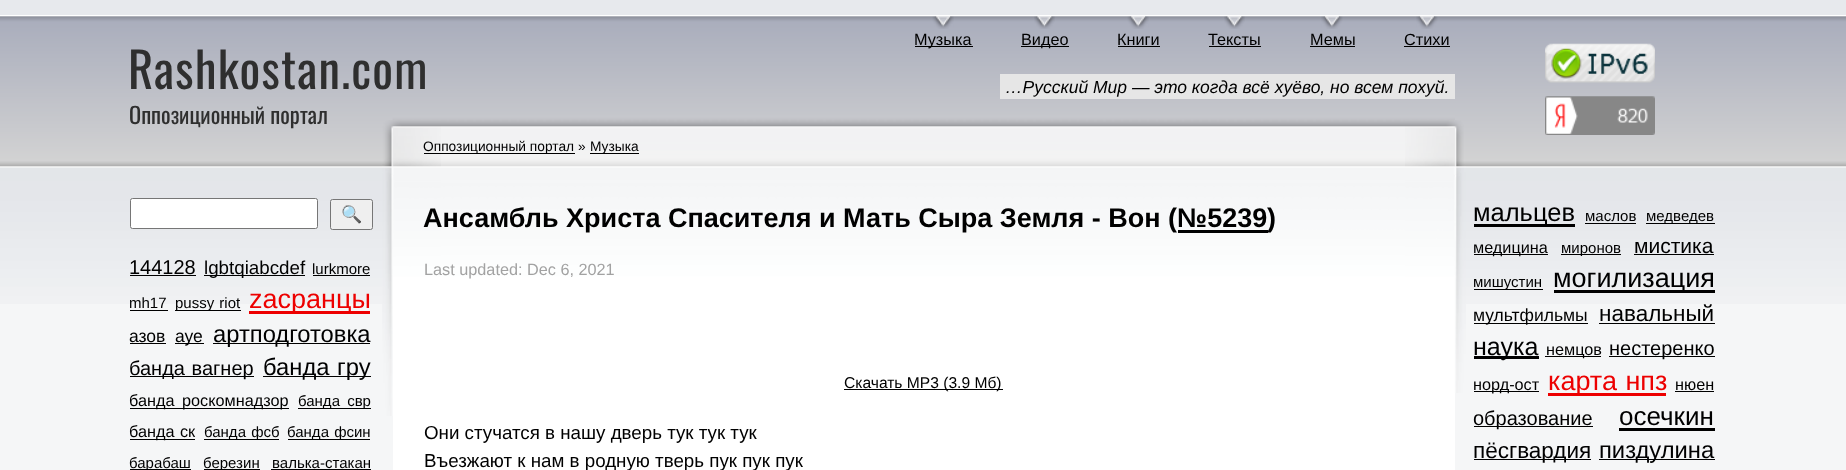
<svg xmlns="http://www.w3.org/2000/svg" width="1846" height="470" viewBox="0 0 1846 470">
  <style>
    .t1 { font: 16.25px Liberation Sans; fill: #000; }
    .t2 { font: 48.75px Oswald; letter-spacing: 1.25px; fill: #2f2f2f; }
    .t3 { font: 22.5px Oswald; fill: #2f2f2f; }
    .t4 { font: 17px Noto Color Emoji; fill: #000; }
    .t5 { font: 20px Liberation Sans; fill: #000; }
    .t6 { font: 18.75px Liberation Sans; fill: #000; }
    .t7 { font: 15px Liberation Sans; fill: #000; }
    .t8 { font: 27px Liberation Sans; fill: #ed0000; }
    .t9 { font: 17.5px Liberation Sans; fill: #000; }
    .t10 { font: 23.75px Liberation Sans; fill: #000; }
    .t11 { font: italic 17.5px Liberation Sans; fill: #000; }
    .t12 { font: 13.75px Liberation Sans; fill: #000; }
    .t13 { font: bold 27px Liberation Sans; fill: #000; }
    .t14 { font: 16.25px Liberation Sans; fill: #a2a2a2; }
    .t15 { font: 15.6px Liberation Sans; fill: #000; }
    .t16 { font: 25.5px Liberation Sans; fill: #000; }
    .t17 { font: 21px Liberation Sans; fill: #000; }
    .t18 { font: 27px Liberation Sans; fill: #000; }
    .t19 { font: 22.5px Liberation Sans; fill: #000; }
    .t20 { font: 25px Liberation Sans; fill: #000; }
    .t21 { font: 26px Liberation Sans; fill: #000; }
  </style>
  <rect width="100%" height="100%" fill="#f5f6f7"/>
  <rect x="0" y="0" width="1846" height="15" fill="#e7e9ed"/>
  <image x="0" y="15" width="1846" height="289" href="images/1.png"/>
  <image x="932" y="16" width="22" height="13" href="images/2.png"/>
  <rect x="915" y="46" width="58" height="1" fill="#000"/>
  <text x="914" y="45" class="t1">Музыка</text>
  <image x="1034" y="16" width="21" height="13" href="images/3.png"/>
  <rect x="1021" y="46" width="48" height="1" fill="#000"/>
  <text x="1021" y="45" class="t1">Видео</text>
  <image x="1127" y="16" width="22" height="13" href="images/2.png"/>
  <text x="1117" y="45" class="t1">Книги</text>
  <rect x="1118" y="46" width="42" height="1" fill="#000"/>
  <image x="1224" y="16" width="21" height="13" href="images/3.png"/>
  <text x="1208" y="45" class="t1">Тексты</text>
  <rect x="1209" y="46" width="52" height="1" fill="#000"/>
  <image x="1321" y="16" width="22" height="13" href="images/4.png"/>
  <text x="1310" y="45" class="t1">Мемы</text>
  <rect x="1310" y="46" width="45" height="1" fill="#000"/>
  <image x="1416" y="16" width="22" height="13" href="images/4.png"/>
  <text x="1404" y="45" class="t1">Стихи</text>
  <rect x="1404" y="46" width="46" height="1" fill="#000"/>
  <text x="128" y="89" class="t2">Rashkostan.com</text>
  <text x="129" y="124" class="t3">Оппозиционный портал</text>
  <image x="1545" y="43" width="110" height="40" href="images/5.png"/>
  <image x="1545" y="96" width="110" height="39" href="images/6.png"/>
  <rect x="130.5" y="198.5" width="187" height="30" rx="2" fill="#fff" stroke="#767676"/>
  <rect x="330.5" y="199.5" width="42" height="30" rx="2" fill="#efefef" stroke="#767676"/>
  <text x="341" y="220" class="t4">🔍</text>
  <text x="129" y="274" class="t5">144128</text>
  <rect x="130" y="275" width="66" height="1" fill="#000"/>
  <rect x="204" y="275" width="101" height="1" fill="#000"/>
  <text x="204" y="274" class="t6">lgbtqiabcdef</text>
  <text x="312" y="274" class="t7">lurkmore</text>
  <rect x="313" y="275" width="57" height="1" fill="#000"/>
  <text x="129" y="308" class="t7">mh17</text>
  <rect x="130" y="310" width="38" height="1" fill="#000"/>
  <rect x="175" y="310" width="66" height="1" fill="#000"/>
  <text x="175" y="308" word-spacing="1" class="t7">pussy riot</text>
  <rect x="249" y="311" width="121" height="3" fill="#ed0000"/>
  <text x="249" y="308" class="t8">zасранцы</text>
  <text x="129" y="342" class="t9">азов</text>
  <rect x="130" y="343" width="36" height="1" fill="#000"/>
  <rect x="175" y="343" width="29" height="1" fill="#000"/>
  <text x="175" y="342" class="t9">ауе</text>
  <rect x="213" y="343" width="157" height="1" fill="#000"/>
  <text x="213" y="342" class="t10">артподготовка</text>
  <rect x="130" y="376" width="124" height="1" fill="#000"/>
  <text x="129" y="375" word-spacing="1" class="t5">банда вагнер</text>
  <rect x="263" y="376" width="108" height="1" fill="#000"/>
  <text x="263" y="375" word-spacing="1" class="t10">банда гру</text>
  <rect x="130" y="408" width="159" height="1" fill="#000"/>
  <text x="129" y="406" word-spacing="3" class="t1">банда роскомнадзор</text>
  <rect x="298" y="408" width="73" height="1" fill="#000"/>
  <text x="298" y="406" word-spacing="3" class="t7">банда свр</text>
  <rect x="130" y="439" width="65" height="1" fill="#000"/>
  <text x="129" y="437" word-spacing="1" class="t1">банда ск</text>
  <rect x="204" y="439" width="75" height="1" fill="#000"/>
  <text x="204" y="437" word-spacing="1" class="t7">банда фсб</text>
  <rect x="288" y="439" width="82" height="1" fill="#000"/>
  <text x="287" y="437" word-spacing="1" class="t7">банда фсин</text>
  <rect x="130" y="469" width="61" height="1" fill="#000"/>
  <text x="129" y="468" class="t7">барабаш</text>
  <rect x="204" y="469" width="56" height="1" fill="#000"/>
  <text x="203" y="468" class="t7">березин</text>
  <text x="272" y="468" class="t7">валька-стакан</text>
  <rect x="271" y="469" width="100" height="1" fill="#000"/>
  <rect x="393" y="365" width="1062" height="105" fill="#fff"/>
  <image x="392" y="115" width="1063" height="250" href="images/7.png"/>
  <image x="1405" y="120" width="61" height="273" href="images/8.png"/>
  <image x="382" y="120" width="59" height="296" href="images/9.png"/>
  <rect x="1000" y="74" width="455" height="25" fill="#e6e6e6"/>
  <text x="1005" y="93" class="t11">…Русский Мир — это когда всё хуёво, но всем похуй.</text>
  <rect x="424" y="153" width="151" height="1" fill="#000"/>
  <text x="423" y="151" class="t12">Оппозиционный портал »</text>
  <rect x="590" y="153" width="49" height="1" fill="#000"/>
  <text x="590" y="151" class="t12">Музыка</text>
  <text x="423" y="227" class="t13">Ансамбль Христа Спасителя и Мать Сыра Земля - Вон (№5239</text>
  <rect x="1178" y="230" width="90" height="3" fill="#000"/>
  <text x="1267" y="227" class="t13">)</text>
  <text x="424" y="275" class="t14">Last updated: Dec 6, 2021</text>
  <rect x="844" y="389" width="159" height="1" fill="#000"/>
  <text x="844" y="388" class="t15">Скачать MP3 (3.9 Мб)</text>
  <text x="424" y="439" class="t6">Они стучатся в нашу дверь тук тук тук</text>
  <text x="424" y="467" class="t6">Въезжают к нам в родную тверь пук пук пук</text>
  <rect x="1474" y="224" width="101" height="3" fill="#000"/>
  <text x="1473" y="221" class="t16">мальцев</text>
  <text x="1585" y="221" class="t7">маслов</text>
  <rect x="1585" y="223" width="51" height="1" fill="#000"/>
  <rect x="1646" y="223" width="69" height="1" fill="#000"/>
  <text x="1646" y="221" class="t7">медведев</text>
  <rect x="1474" y="254" width="74" height="1" fill="#000"/>
  <text x="1473" y="253" class="t1">медицина</text>
  <rect x="1561" y="254" width="60" height="1" fill="#000"/>
  <text x="1561" y="253" class="t7">миронов</text>
  <text x="1634" y="253" class="t17">мистика</text>
  <rect x="1634" y="254" width="80" height="1" fill="#000"/>
  <rect x="1474" y="289" width="69" height="1" fill="#000"/>
  <text x="1473" y="287" class="t7">мишустин</text>
  <rect x="1554" y="290" width="161" height="3" fill="#000"/>
  <text x="1553" y="287" class="t18">могилизация</text>
  <rect x="1474" y="323" width="114" height="1" fill="#000"/>
  <text x="1473" y="321" class="t9">мультфильмы</text>
  <text x="1599" y="321" class="t19">навальный</text>
  <rect x="1599" y="323" width="116" height="1" fill="#000"/>
  <rect x="1474" y="356" width="65" height="3" fill="#000"/>
  <text x="1473" y="355" class="t20">наука</text>
  <rect x="1545" y="356" width="56" height="1" fill="#000"/>
  <text x="1546" y="355" class="t1">немцов</text>
  <rect x="1609" y="356" width="106" height="1" fill="#000"/>
  <text x="1609" y="355" class="t5">нестеренко</text>
  <rect x="1474" y="391" width="65" height="1" fill="#000"/>
  <text x="1473" y="390" class="t1">норд-ост</text>
  <rect x="1548" y="393" width="118" height="3" fill="#ed0000"/>
  <text x="1548" y="390" word-spacing="1" class="t8">карта нпз</text>
  <text x="1675" y="390" class="t1">нюен</text>
  <rect x="1675" y="391" width="39" height="1" fill="#000"/>
  <rect x="1474" y="426" width="119" height="1" fill="#000"/>
  <text x="1473" y="425" class="t5">образование</text>
  <text x="1619" y="425" class="t21">осечкин</text>
  <rect x="1619" y="428" width="96" height="3" fill="#000"/>
  <rect x="1474" y="459" width="117" height="1" fill="#000"/>
  <text x="1473" y="458" class="t19">пёсгвардия</text>
  <rect x="1599" y="459" width="116" height="1" fill="#000"/>
  <text x="1599" y="458" class="t10">пиздулина</text>
</svg>
